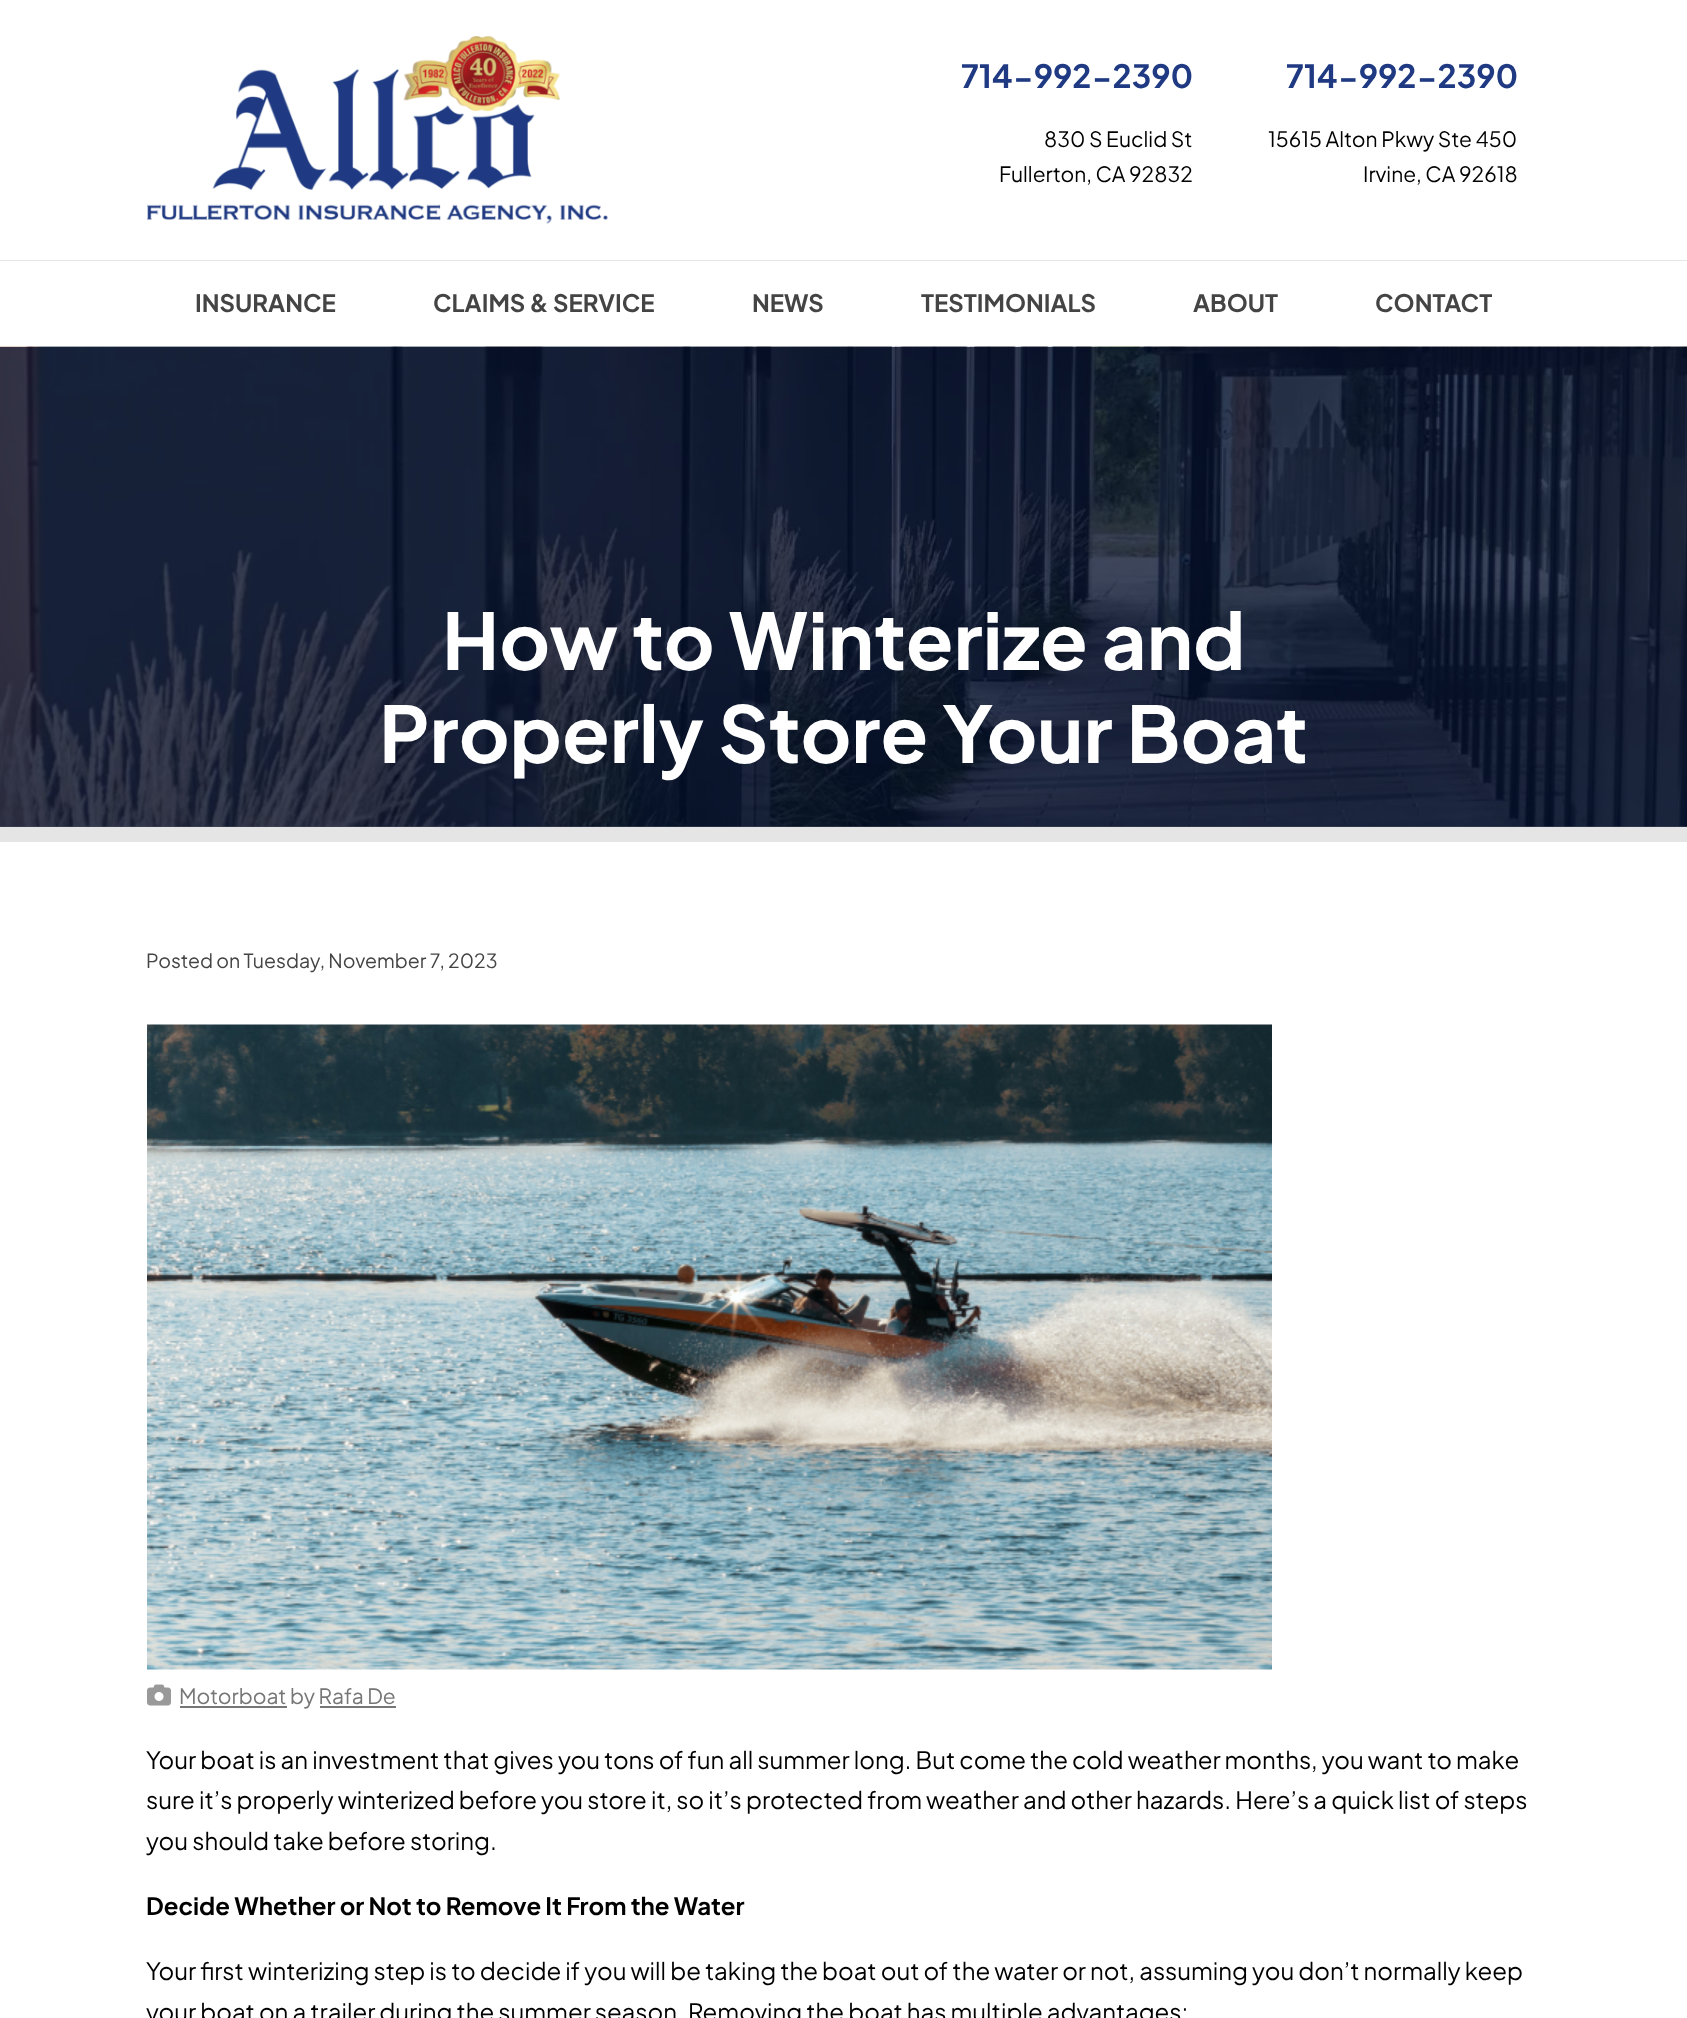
<svg xmlns="http://www.w3.org/2000/svg" width="1687" height="2018" viewBox="0 0 1687 2018">
  <style>
    .t1 { font: bold 32px Plus Jakarta Sans; fill: #1f3a82; }
    .t2 { font: 21px Plus Jakarta Sans; fill: #000; }
    .t3 { font: bold 24px Plus Jakarta Sans; fill: #444; }
    .t4 { font: bold 78px Plus Jakarta Sans; fill: #fff; }
    .t5 { font: 19.5px Plus Jakarta Sans; fill: #444; }
    .t6 { font: 21px Plus Jakarta Sans; fill: #767676; }
    .t7 { font: 24px Plus Jakarta Sans; fill: #000; }
    .t8 { font: bold 24px Plus Jakarta Sans; fill: #000; }
  </style>
  <rect width="100%" height="100%" fill="#fff"/>
  <rect x="0" y="826" width="1687" height="1" fill="#41495f"/>
  <image x="147" y="36" width="461" height="188" href="images/1.png"/>
  <text x="961" y="88" class="t1">714-992-2390</text>
  <text x="1044" y="147" class="t2">830 S Euclid St</text>
  <text x="999" y="182" class="t2">Fullerton, CA 92832</text>
  <text x="1286" y="88" class="t1">714-992-2390</text>
  <text x="1268" y="147" class="t2">15615 Alton Pkwy Ste 450</text>
  <text x="1363" y="182" class="t2">Irvine, CA 92618</text>
  <rect x="0" y="260" width="1687" height="1" fill="#e6e6e6"/>
  <text x="195" y="312" class="t3">INSURANCE</text>
  <text x="433" y="312" class="t3">CLAIMS &amp; SERVICE</text>
  <text x="752" y="312" class="t3">NEWS</text>
  <text x="921" y="312" class="t3">TESTIMONIALS</text>
  <text x="1193" y="312" class="t3">ABOUT</text>
  <text x="1375" y="312" class="t3">CONTACT</text>
  <image x="0" y="346" width="1687" height="481" href="images/2.png"/>
  <rect x="0" y="827" width="1687" height="15" fill="#e5e5e5"/>
  <text x="442" y="670" class="t4">How to Winterize and</text>
  <text x="379" y="763" class="t4">Properly Store Your Boat</text>
  <text x="146" y="968" class="t5">Posted on Tuesday, November 7, 2023</text>
  <image x="147" y="1024" width="1125" height="646" href="images/3.png"/>
  <image x="147" y="1684" width="24" height="22" href="images/4.png"/>
  <rect x="180" y="1706" width="107" height="2" fill="#767676"/>
  <text x="179" y="1704" class="t6">Motorboat by Rafa De</text>
  <rect x="320" y="1706" width="76" height="2" fill="#767676"/>
  <text x="146" y="1769" class="t7">Your boat is an investment that gives you tons of fun all summer long. But come the cold weather months, you want to make</text>
  <text x="146" y="1809" class="t7">sure it’s properly winterized before you store it, so it’s protected from weather and other hazards. Here’s a quick list of steps</text>
  <text x="146" y="1850" class="t7">you should take before storing.</text>
  <text x="146" y="1915" class="t8">Decide Whether or Not to Remove It From the Water</text>
  <text x="146" y="1980" class="t7">Your first winterizing step is to decide if you will be taking the boat out of the water or not, assuming you don’t normally keep</text>
  <text x="146" y="2021" class="t7">your boat on a trailer during the summer season. Removing the boat has multiple advantages:</text>
</svg>
